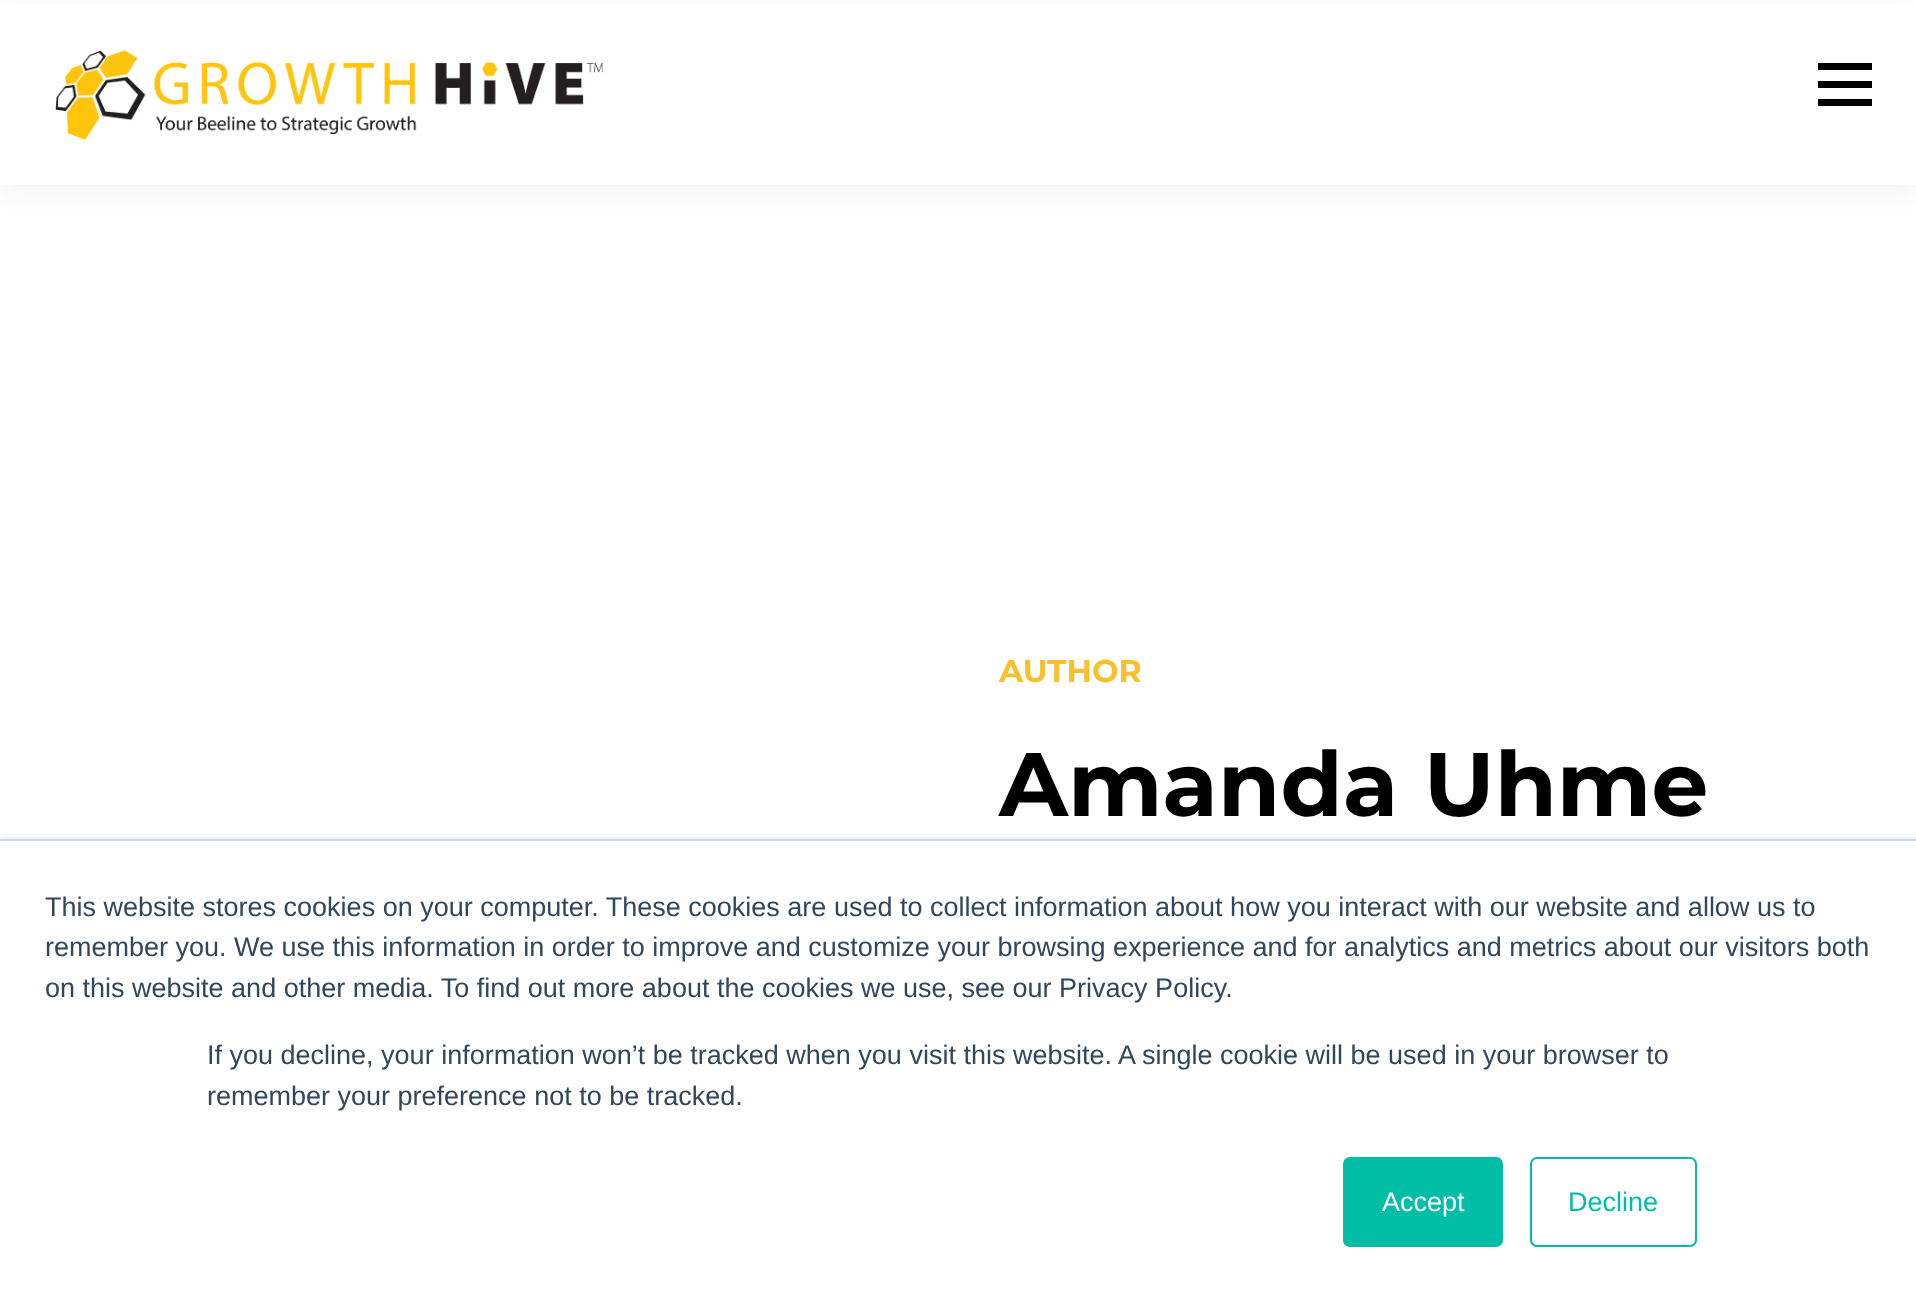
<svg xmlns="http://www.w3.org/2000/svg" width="1916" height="1304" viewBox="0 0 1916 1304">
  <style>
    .t1 { font: bold 31.5px Montserrat; fill: #f9c02d; }
    .t2 { font: bold 90px Montserrat; fill: #000; }
    .t3 { font: 27px Liberation Sans; fill: #33475b; }
    .t4 { font: 27px Liberation Sans; fill: #fff; }
    .t5 { font: 27px Liberation Sans; fill: #00bda5; }
  </style>
  <rect width="100%" height="100%" fill="#fff"/>
  <rect x="0" y="11" width="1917" height="185" fill="#9aa1b11a" filter="blur(11px)"/>
  <rect x="0" y="4" width="1916" height="181" fill="#fff"/>
  <image x="55" y="50" width="548" height="91" href="images/1.png"/>
  <rect x="1818" y="81" width="54" height="7" fill="#000"/>
  <rect x="1818" y="63" width="54" height="7" fill="#000"/>
  <rect x="1818" y="99" width="54" height="7" fill="#000"/>
  <text x="999" y="682" class="t1">AUTHOR</text>
  <text x="999" y="816" class="t2">Amanda Uhme</text>
  <rect x="0" y="837" width="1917" height="466" fill="#eaf0f6" filter="blur(3.5px)"/>
  <rect x="0" y="841" width="1916" height="463" fill="#fff"/>
  <rect x="0" y="839" width="1916" height="2" fill="#cbd6e2"/>
  <text x="45" y="916" class="t3">This website stores cookies on your computer. These cookies are used to collect information about how you interact with our website and allow us to</text>
  <text x="45" y="956" class="t3">remember you. We use this information in order to improve and customize your browsing experience and for analytics and metrics about our visitors both</text>
  <text x="45" y="997" class="t3">on this website and other media. To find out more about the cookies we use, see our Privacy Policy.</text>
  <text x="207" y="1064" class="t3">If you decline, your information won’t be tracked when you visit this website. A single cookie will be used in your browser to</text>
  <text x="207" y="1105" class="t3">remember your preference not to be tracked.</text>
  <rect x="1344" y="1158" width="158" height="88" rx="6" fill="#00bda5" stroke="#00bda5" stroke-width="2"/>
  <text x="1382" y="1211" class="t4">Accept</text>
  <rect x="1531" y="1158" width="165" height="88" rx="6" fill="none" stroke="#00bda5" stroke-width="2"/>
  <text x="1568" y="1211" class="t5">Decline</text>
</svg>
